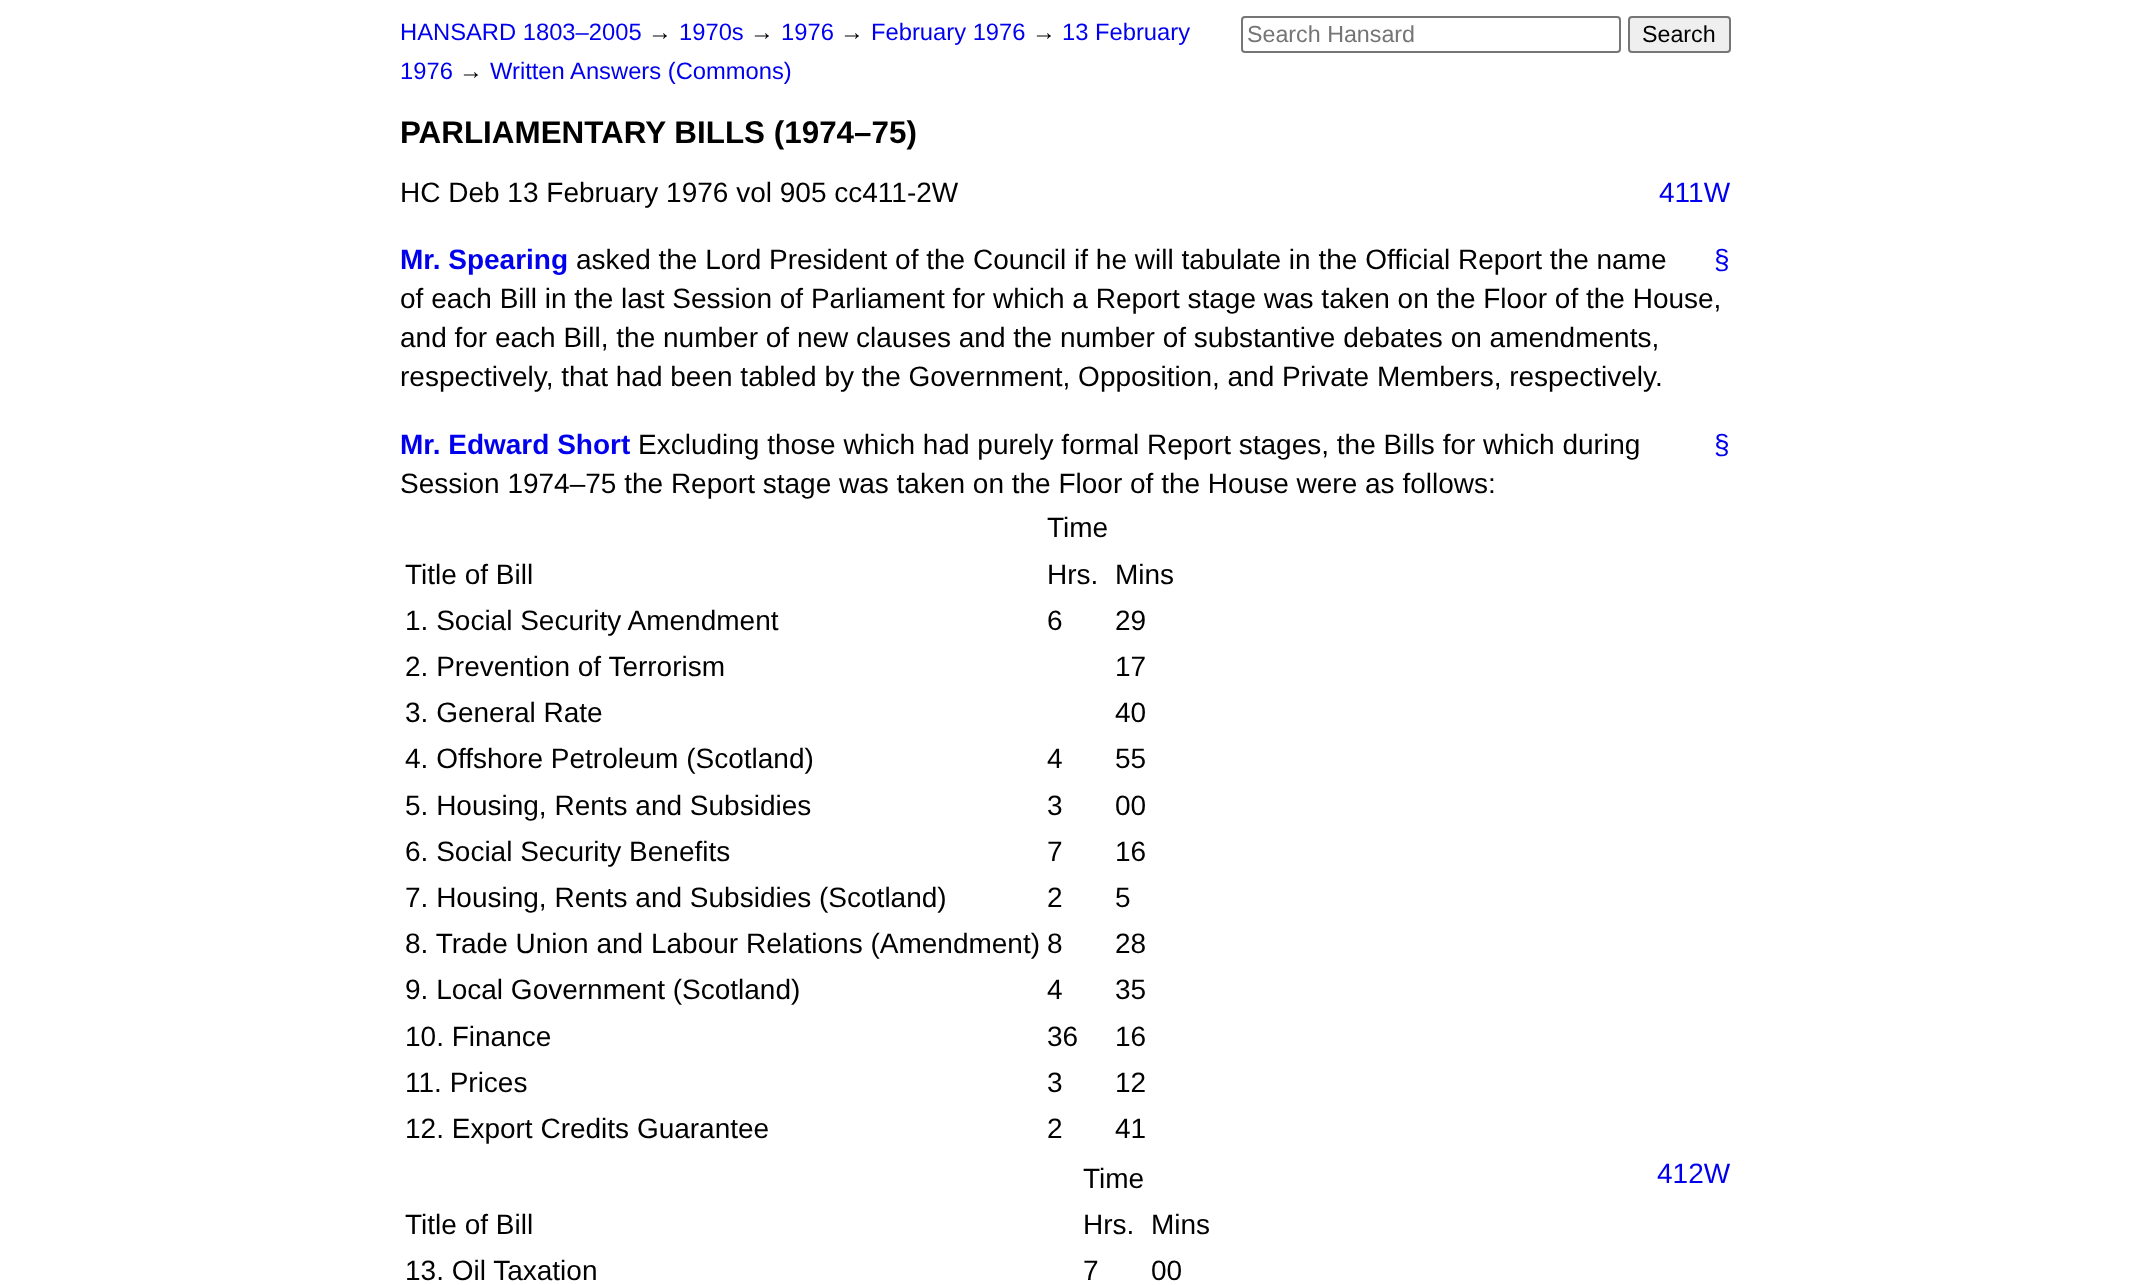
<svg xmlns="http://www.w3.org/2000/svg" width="2129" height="1285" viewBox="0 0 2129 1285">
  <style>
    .t1 { font: 23.75px Liberation Sans; fill: #00e; }
    .t2 { font: 23.75px Liberation Sans; fill: #000; }
    .t3 { font: 23.25px Liberation Sans; fill: #757575; }
    .t4 { font: 23.25px Liberation Sans; fill: #000; }
    .t5 { font: bold 31.4px Liberation Sans; fill: #000; }
    .t6 { font: 28px Liberation Sans; fill: #000; }
    .t7 { font: 28px Liberation Sans; fill: #00e; }
    .t8 { font: bold 28px Liberation Sans; fill: #00e; }
  </style>
  <rect width="100%" height="100%" fill="#fff"/>
  <text x="400" y="40" class="t1">HANSARD 1803–2005</text>
  <text x="648" y="40" class="t2">→</text>
  <text x="679" y="40" class="t1">1970s</text>
  <text x="750" y="40" class="t2">→</text>
  <text x="781" y="40" class="t1">1976</text>
  <text x="840" y="40" class="t2">→</text>
  <text x="871" y="40" class="t1">February 1976</text>
  <text x="1032" y="40" class="t2">→</text>
  <text x="1062" y="40" class="t1">13 February</text>
  <text x="400" y="79" class="t1">1976</text>
  <text x="459" y="79" class="t2">→</text>
  <text x="490" y="79" class="t1">Written Answers (Commons)</text>
  <rect x="1242" y="17" width="378" height="35" rx="3" fill="none" stroke="#767676" stroke-width="2"/>
  <text x="1247" y="42" class="t3">Search Hansard</text>
  <rect x="1629" y="17" width="101" height="35" rx="3" fill="#efefef" stroke="#767676" stroke-width="2"/>
  <text x="1642" y="42" class="t4">Search</text>
  <text x="400" y="143" class="t5">PARLIAMENTARY BILLS (1974–75)</text>
  <text x="400" y="202" class="t6">HC Deb 13 February 1976 vol 905 cc411-2W</text>
  <text x="1659" y="202" class="t7">411W</text>
  <text x="400" y="269" class="t8">Mr. Spearing</text>
  <text x="576" y="269" class="t6">asked the Lord President of the Council if he will tabulate in the Official Report the name</text>
  <text x="1714" y="269" class="t7">§</text>
  <text x="400" y="308" class="t6">of each Bill in the last Session of Parliament for which a Report stage was taken on the Floor of the House,</text>
  <text x="400" y="347" class="t6">and for each Bill, the number of new clauses and the number of substantive debates on amendments,</text>
  <text x="400" y="386" class="t6">respectively, that had been tabled by the Government, Opposition, and Private Members, respectively.</text>
  <text x="400" y="454" class="t8">Mr. Edward Short</text>
  <text x="638" y="454" class="t6">Excluding those which had purely formal Report stages, the Bills for which during</text>
  <text x="1714" y="454" class="t7">§</text>
  <text x="400" y="493" class="t6">Session 1974–75 the Report stage was taken on the Floor of the House were as follows:</text>
  <text x="1047" y="537" class="t6">Time</text>
  <text x="405" y="584" class="t6">Title of Bill</text>
  <text x="1047" y="584" class="t6">Hrs.</text>
  <text x="1115" y="584" class="t6">Mins</text>
  <text x="405" y="630" class="t6">1. Social Security Amendment</text>
  <text x="1047" y="630" class="t6">6</text>
  <text x="1115" y="630" class="t6">29</text>
  <text x="405" y="676" class="t6">2. Prevention of Terrorism</text>
  <text x="1115" y="676" class="t6">17</text>
  <text x="405" y="722" class="t6">3. General Rate</text>
  <text x="1115" y="722" class="t6">40</text>
  <text x="405" y="768" class="t6">4. Offshore Petroleum (Scotland)</text>
  <text x="1047" y="768" class="t6">4</text>
  <text x="1115" y="768" class="t6">55</text>
  <text x="405" y="815" class="t6">5. Housing, Rents and Subsidies</text>
  <text x="1047" y="815" class="t6">3</text>
  <text x="1115" y="815" class="t6">00</text>
  <text x="405" y="861" class="t6">6. Social Security Benefits</text>
  <text x="1047" y="861" class="t6">7</text>
  <text x="1115" y="861" class="t6">16</text>
  <text x="405" y="907" class="t6">7. Housing, Rents and Subsidies (Scotland)</text>
  <text x="1047" y="907" class="t6">2</text>
  <text x="1115" y="907" class="t6">5</text>
  <text x="405" y="953" class="t6">8. Trade Union and Labour Relations (Amendment)</text>
  <text x="1047" y="953" class="t6">8</text>
  <text x="1115" y="953" class="t6">28</text>
  <text x="405" y="999" class="t6">9. Local Government (Scotland)</text>
  <text x="1047" y="999" class="t6">4</text>
  <text x="1115" y="999" class="t6">35</text>
  <text x="405" y="1046" class="t6">10. Finance</text>
  <text x="1047" y="1046" class="t6">36</text>
  <text x="1115" y="1046" class="t6">16</text>
  <text x="405" y="1092" class="t6">11. Prices</text>
  <text x="1047" y="1092" class="t6">3</text>
  <text x="1115" y="1092" class="t6">12</text>
  <text x="405" y="1138" class="t6">12. Export Credits Guarantee</text>
  <text x="1047" y="1138" class="t6">2</text>
  <text x="1115" y="1138" class="t6">41</text>
  <text x="1083" y="1188" class="t6">Time</text>
  <text x="405" y="1234" class="t6">Title of Bill</text>
  <text x="1083" y="1234" class="t6">Hrs.</text>
  <text x="1151" y="1234" class="t6">Mins</text>
  <text x="405" y="1280" class="t6">13. Oil Taxation</text>
  <text x="1083" y="1280" class="t6">7</text>
  <text x="1151" y="1280" class="t6">00</text>
  <text x="1657" y="1183" class="t7">412W</text>
</svg>
